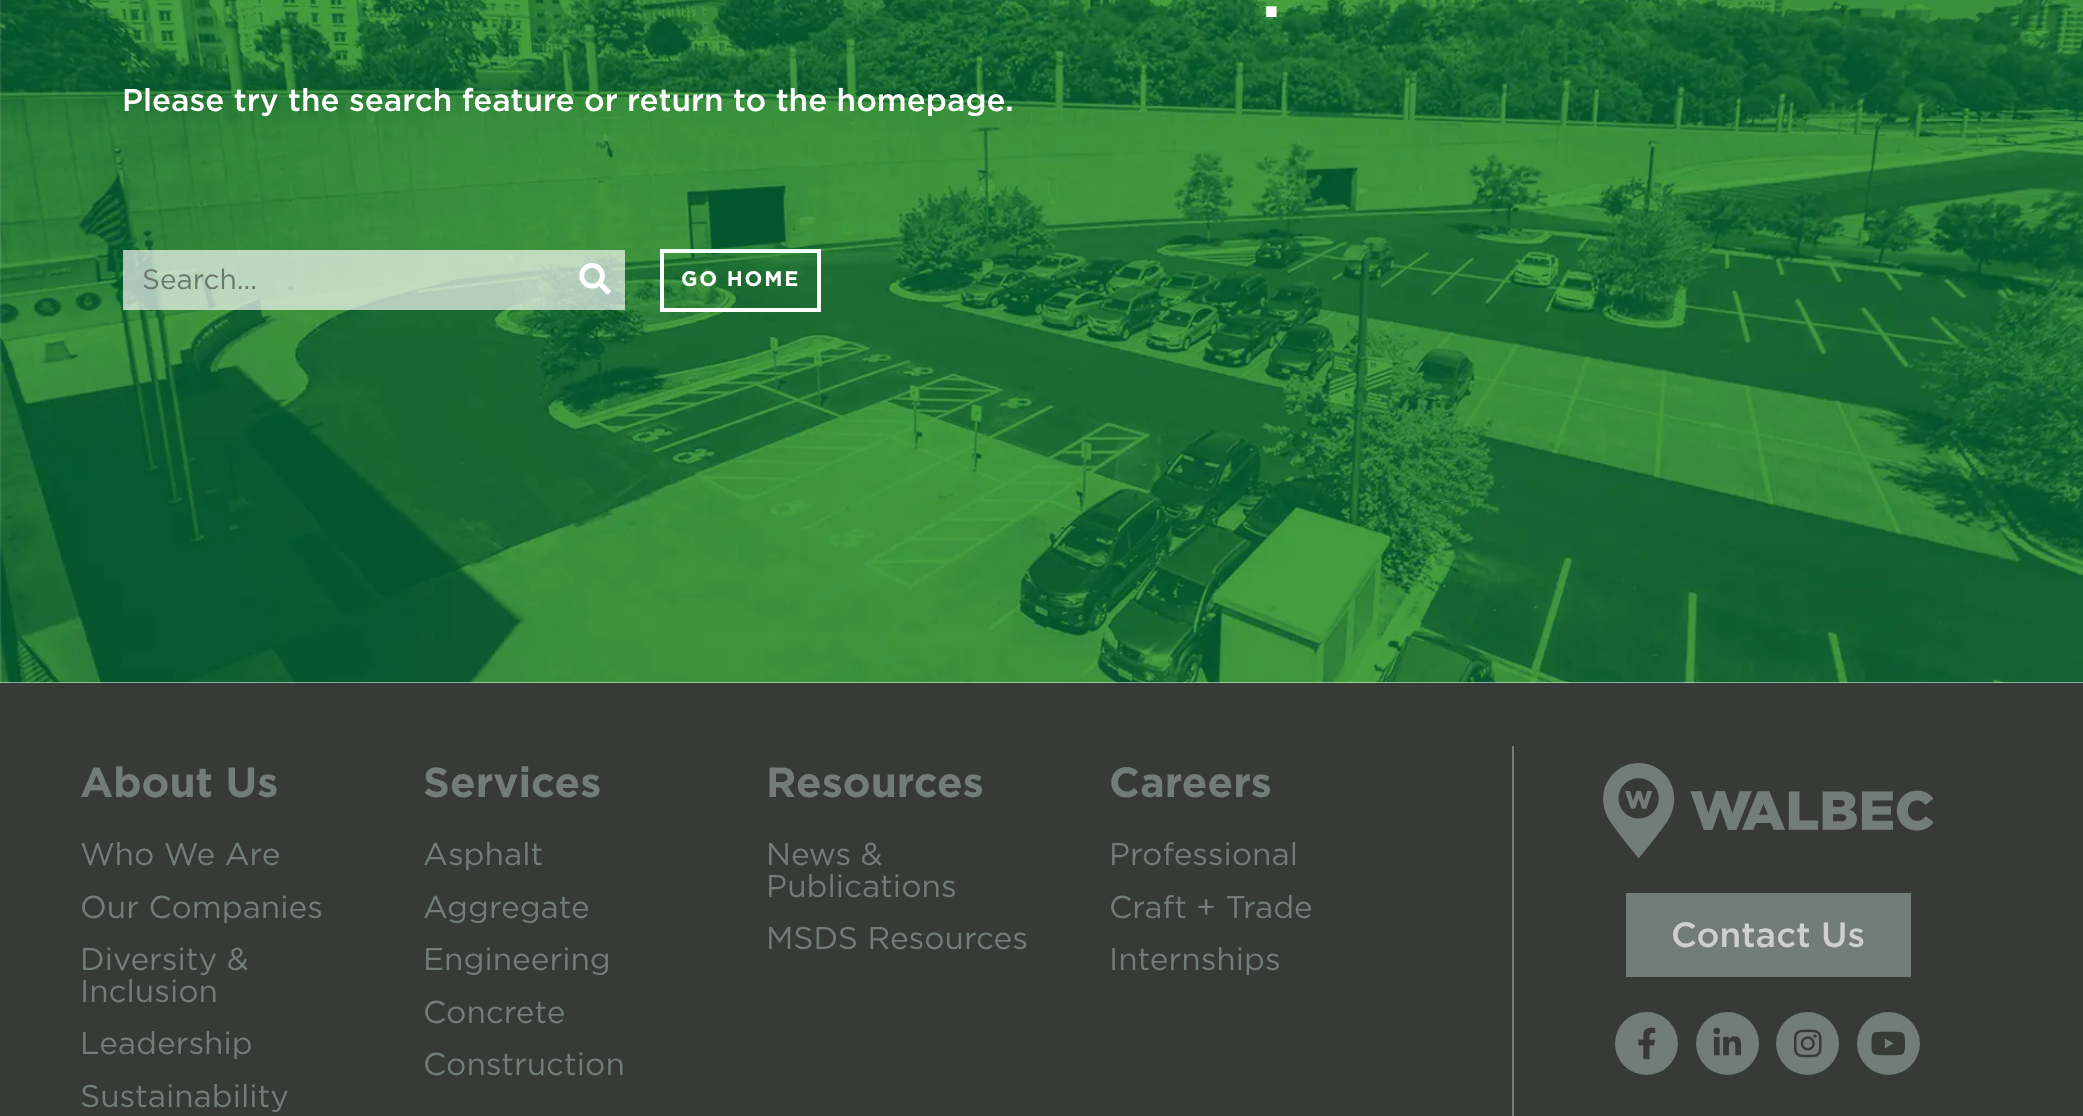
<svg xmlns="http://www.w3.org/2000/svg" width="2083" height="1116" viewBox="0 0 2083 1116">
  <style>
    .t1 { font: 500 77px Gotham; fill: #fff; }
    .t2 { font: 500 31.5px Gotham; fill: #fff; }
    .t3 { font: 28px Gotham; fill: #6b776c; }
    .t4 { font: bold 21px Gotham; letter-spacing: 1.75px; fill: #fff; }
    .t5 { font: bold 42px Gotham; fill: #727c79; }
    .t6 { font: 31.5px Gotham; fill: #727c79; }
    .t7 { font: 500 35px Gotham; fill: #cdd0cf; }
  </style>
  <rect width="100%" height="100%" fill="#fff"/>
  <image x="0" y="0" width="2083" height="683" href="images/1.png"/>
  <text x="1261" y="17" class="t1">.</text>
  <text x="122" y="111" class="t2">Please try the search feature or return to the homepage.</text>
  <rect x="123" y="250" width="502" height="60" fill="#ffffffab"/>
  <text x="142" y="289" class="t3">Search...</text>
  <image x="579" y="263" width="32" height="32" href="images/2.png"/>
  <rect x="662" y="251" width="157" height="59" fill="none" stroke="#fff" stroke-width="4"/>
  <text x="681" y="286" class="t4">GO HOME</text>
  <rect x="0" y="683" width="2083" height="433" fill="#373a36"/>
  <text x="80" y="797" class="t5">About Us</text>
  <text x="80" y="865" class="t6">Who We Are</text>
  <text x="80" y="918" class="t6">Our Companies</text>
  <text x="80" y="970" class="t6">Diversity &amp;</text>
  <text x="80" y="1002" class="t6">Inclusion</text>
  <text x="80" y="1054" class="t6">Leadership</text>
  <text x="80" y="1107" class="t6">Sustainability</text>
  <text x="423" y="797" class="t5">Services</text>
  <text x="423" y="865" class="t6">Asphalt</text>
  <text x="423" y="918" class="t6">Aggregate</text>
  <text x="423" y="970" class="t6">Engineering</text>
  <text x="423" y="1023" class="t6">Concrete</text>
  <text x="423" y="1075" class="t6">Construction</text>
  <text x="766" y="797" class="t5">Resources</text>
  <text x="766" y="865" class="t6">News &amp;</text>
  <text x="766" y="897" class="t6">Publications</text>
  <text x="766" y="949" class="t6">MSDS Resources</text>
  <text x="1109" y="797" class="t5">Careers</text>
  <text x="1109" y="865" class="t6">Professional</text>
  <text x="1109" y="918" class="t6">Craft + Trade</text>
  <text x="1109" y="970" class="t6">Internships</text>
  <rect x="1512" y="746" width="2" height="370" fill="#727c79"/>
  <image x="1603" y="763" width="331" height="95" href="images/3.png"/>
  <rect x="1626" y="893" width="285" height="84" fill="#727c79"/>
  <text x="1671" y="947" class="t7">Contact Us</text>
  <circle cx="1646.5" cy="1043.5" r="31.5" fill="#727c79"/>
  <image x="1638" y="1027" width="18" height="33" href="images/4.png"/>
  <circle cx="1727.5" cy="1043.5" r="31.5" fill="#727c79"/>
  <image x="1713" y="1027" width="28" height="29" href="images/5.png"/>
  <circle cx="1807.5" cy="1043.5" r="31.5" fill="#727c79"/>
  <image x="1794" y="1029" width="28" height="29" href="images/6.png"/>
  <circle cx="1888.5" cy="1043.5" r="31.5" fill="#727c79"/>
  <image x="1871" y="1031" width="34" height="25" href="images/7.png"/>
</svg>
